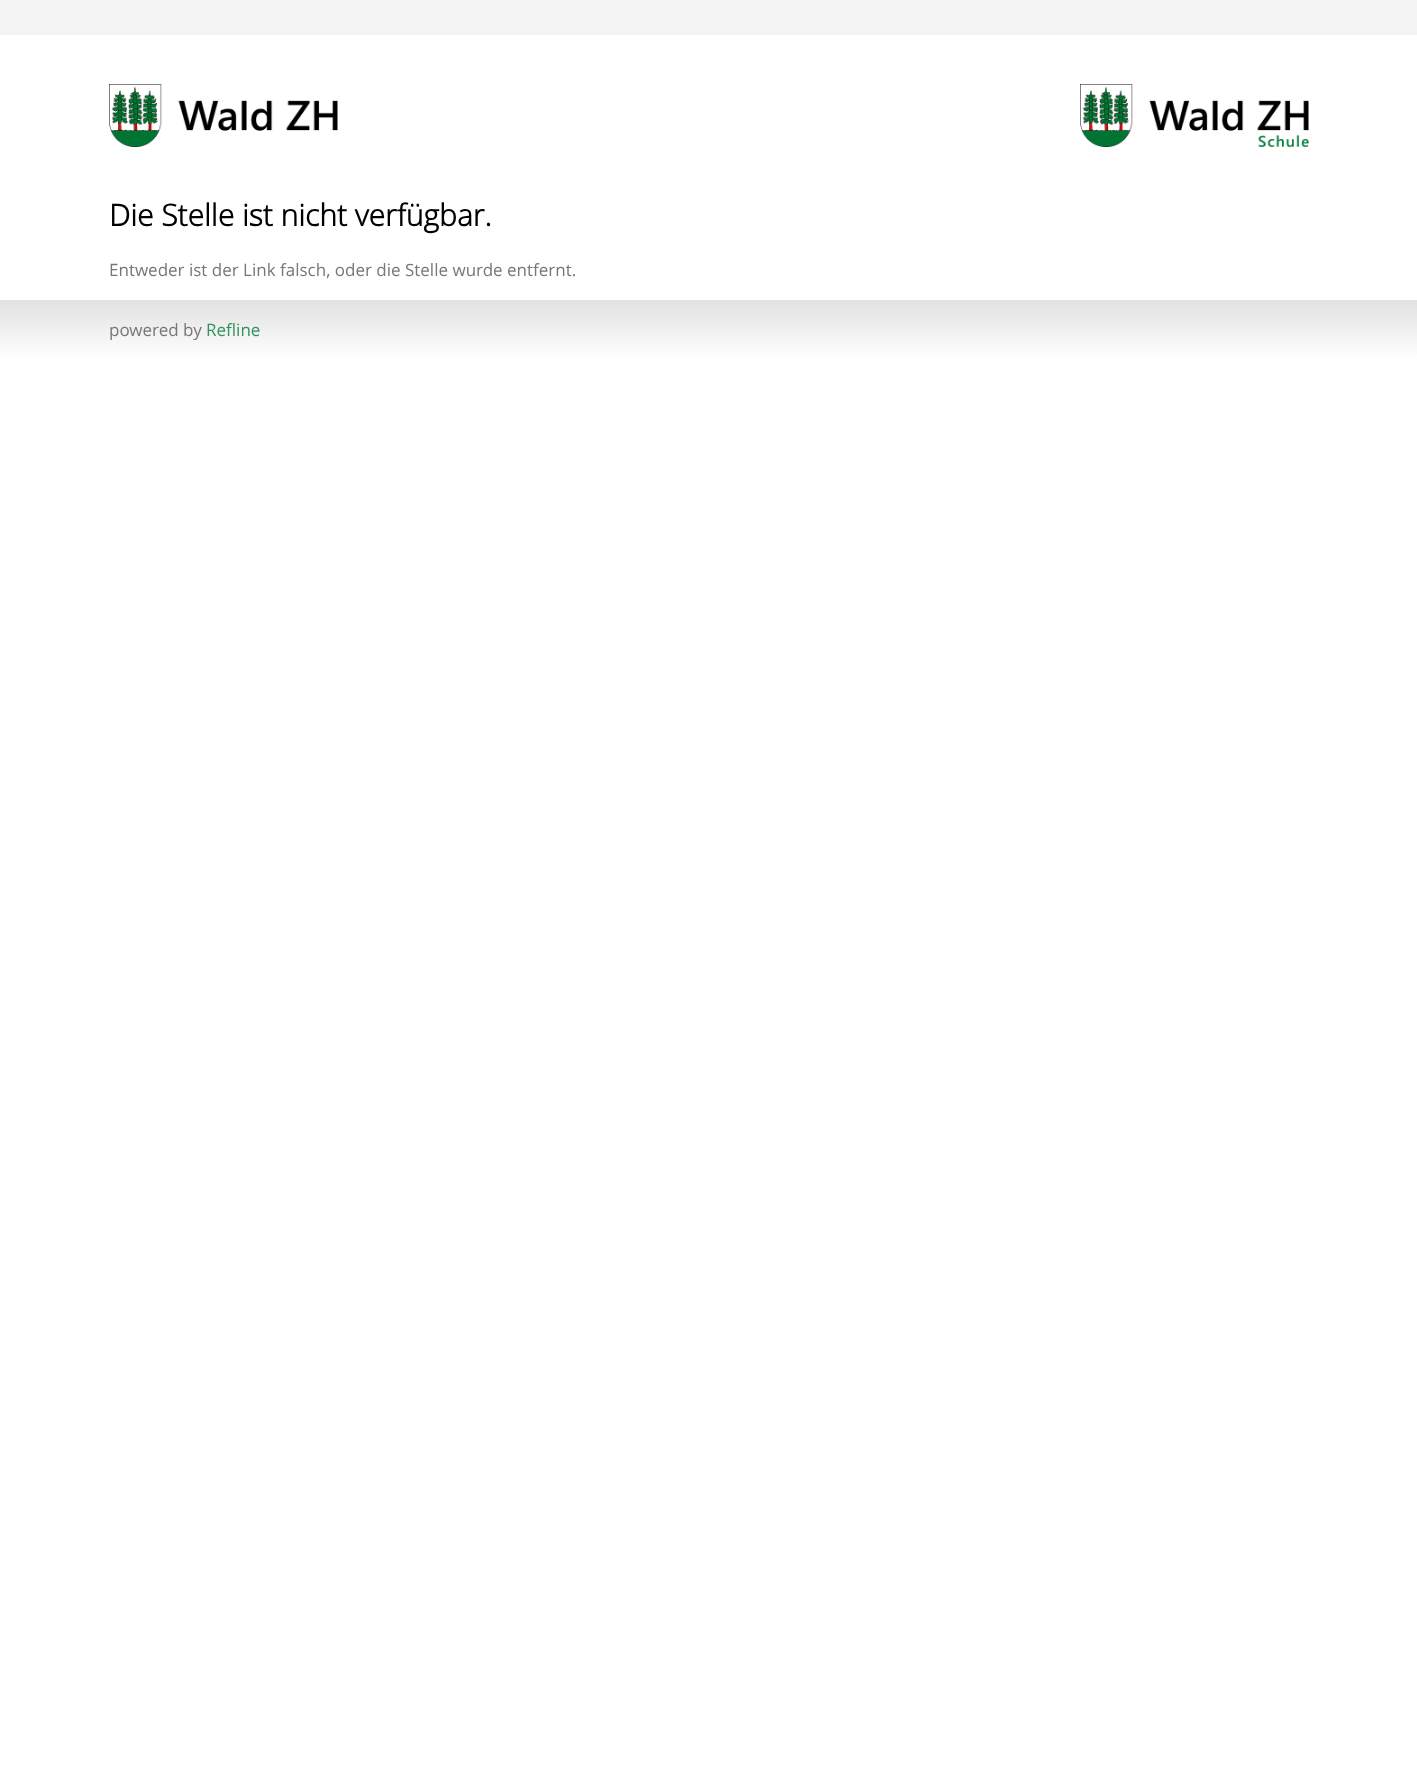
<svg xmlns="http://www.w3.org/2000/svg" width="1417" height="1778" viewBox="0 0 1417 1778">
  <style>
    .t1 { font: bold 30px Open Sans; fill: #000; }
    .t2 { font: 17px Open Sans; fill: #777; }
    .t3 { font: 17px Open Sans; fill: #33915d; }
  </style>
  <defs>
    <linearGradient id="g1" gradientUnits="userSpaceOnUse" x1="709" y1="300" x2="709" y2="360"><stop offset="0" stop-color="#e1e1e1"/><stop offset="1" stop-color="#fff"/></linearGradient>
  </defs>
  <rect width="100%" height="100%" fill="#fff"/>
  <rect x="0" y="0" width="1417" height="35" fill="#f3f3f3"/>
  <image x="109" y="84" width="229" height="63" href="images/1.png"/>
  <image x="1080" y="84" width="229" height="63" href="images/2.png"/>
  <text x="109" y="226" class="t1">Die Stelle ist nicht verfügbar.</text>
  <text x="109" y="276" class="t2">Entweder ist der Link falsch, oder die Stelle wurde entfernt.</text>
  <rect x="0" y="300" width="1417" height="55" fill="url(#g1)"/>
  <text x="109" y="336" class="t2">powered by</text>
  <text x="206" y="336" class="t3">Refline</text>
</svg>
